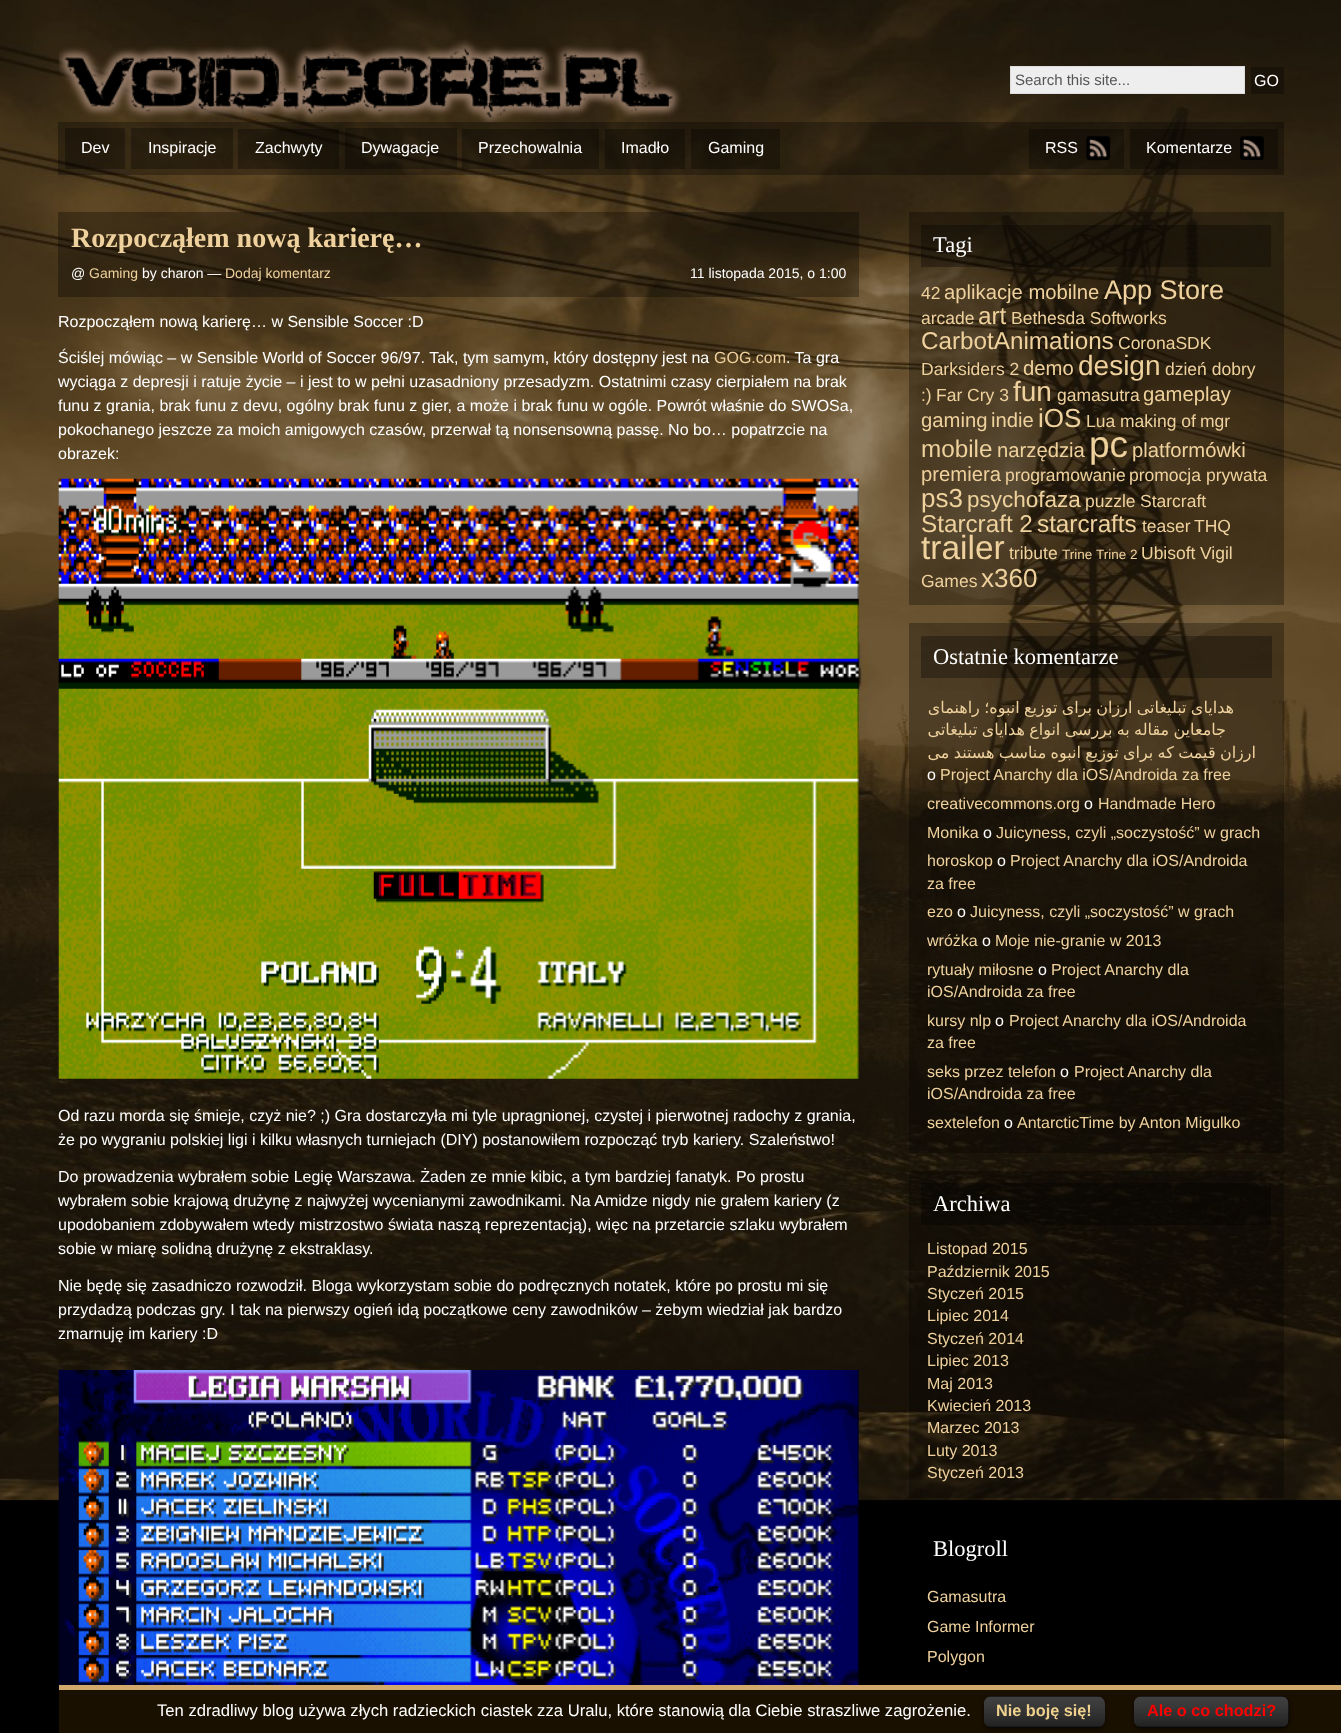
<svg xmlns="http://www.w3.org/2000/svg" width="1341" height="1733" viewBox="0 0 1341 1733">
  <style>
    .t1 { font: 15px Liberation Sans; fill: #555; }
    .t2 { font: 16px Liberation Sans; fill: #fff; }
    .t3 { font: bold 28px Liberation Serif; fill: #efd19d; }
    .t4 { font: 14px Liberation Sans; fill: #fff; }
    .t5 { font: 14px Liberation Sans; fill: #efd19d; }
    .t6 { font: 16px Liberation Sans; fill: #efd19d; }
    .t7 { font: 22.5px Liberation Serif; fill: #fff; }
    .t8 { font: 17.5px Liberation Sans; fill: #efd19d; }
    .t9 { font: 20.25px Liberation Sans; fill: #efd19d; }
    .t10 { font: 27px Liberation Sans; fill: #efd19d; }
    .t11 { font: 24.25px Liberation Sans; fill: #efd19d; }
    .t12 { font: 28px Liberation Sans; fill: #efd19d; }
    .t13 { font: 26px Liberation Sans; fill: #efd19d; }
    .t14 { font: 37px Liberation Sans; fill: #efd19d; }
    .t15 { font: 22.5px Liberation Sans; fill: #efd19d; }
    .t16 { font: 33.5px Liberation Sans; fill: #efd19d; }
    .t17 { font: 13.5px Liberation Sans; fill: #efd19d; }
    .t18 { font: 16px DejaVu Sans; direction: rtl; fill: #efd19d; }
    .t19 { font: 16.65px Liberation Sans; fill: #fff; }
    .t20 { font: bold 16.25px Liberation Sans; fill: #efd18d; }
    .t21 { font: bold 16.25px Liberation Sans; fill: #f00; }
  </style>
  <rect width="100%" height="100%" fill="#000"/>
  <image x="0" y="0" width="1341" height="1501" href="images/1.png"/>
  <image x="58" y="40" width="624" height="83" href="images/2.png"/>
  <rect x="1010.5" y="66.5" width="234" height="27" fill="#eee" stroke="#ddd"/>
  <text x="1015" y="85" class="t1">Search this site...</text>
  <rect x="1251" y="67" width="33" height="27" fill="#0000004d"/>
  <text x="1254" y="86" class="t2">GO</text>
  <rect x="58" y="122" width="1226" height="53" fill="#0000004d"/>
  <rect x="65" y="128" width="60" height="41" fill="#0000004d"/>
  <text x="81" y="153" class="t2">Dev</text>
  <rect x="131" y="128" width="102" height="41" fill="#0000004d"/>
  <text x="148" y="153" class="t2">Inspiracje</text>
  <rect x="238" y="129" width="101" height="40" fill="#0000004d"/>
  <text x="255" y="153" class="t2">Zachwyty</text>
  <rect x="345" y="128" width="112" height="41" fill="#0000004d"/>
  <text x="361" y="153" class="t2">Dywagacje</text>
  <rect x="462" y="129" width="137" height="40" fill="#0000004d"/>
  <text x="478" y="153" class="t2">Przechowalnia</text>
  <rect x="605" y="129" width="80" height="40" fill="#0000004d"/>
  <text x="621" y="153" class="t2">Imadło</text>
  <rect x="691" y="129" width="89" height="40" fill="#0000004d"/>
  <text x="708" y="153" class="t2">Gaming</text>
  <rect x="1029" y="129" width="95" height="40" fill="#0000004d"/>
  <image x="1086" y="136" width="25" height="25" href="images/3.png"/>
  <text x="1045" y="153" class="t2">RSS</text>
  <rect x="1130" y="129" width="148" height="40" fill="#0000004d"/>
  <image x="1240" y="136" width="24" height="24" href="images/4.png"/>
  <text x="1146" y="153" class="t2">Komentarze</text>
  <rect x="58" y="212" width="801" height="85" fill="#0000004d"/>
  <text x="71" y="247" class="t3">Rozpocząłem nową karierę…</text>
  <text x="71" y="278" class="t4">@</text>
  <text x="89" y="278" class="t5">Gaming</text>
  <text x="142" y="278" class="t4">by charon —</text>
  <text x="225" y="278" class="t5">Dodaj komentarz</text>
  <text x="690" y="278" class="t4">11 listopada 2015, o 1:00</text>
  <text x="58" y="327" class="t2">Rozpocząłem nową karierę… w Sensible Soccer :D</text>
  <text x="58" y="363" class="t2">Ściślej mówiąc – w Sensible World of Soccer 96/97. Tak, tym samym, który dostępny jest na</text>
  <text x="714" y="363" class="t6">GOG.com</text>
  <text x="786" y="363" class="t2">. Ta gra</text>
  <text x="58" y="387" class="t2">wyciąga z depresji i ratuje życie – i jest to w pełni uzasadniony przesadyzm. Ostatnimi czasy cierpiałem na brak</text>
  <text x="58" y="411" class="t2">funu z grania, brak funu z devu, ogólny brak funu z gier, a może i brak funu w ogóle. Powrót właśnie do SWOSa,</text>
  <text x="58" y="435" class="t2">pokochanego jeszcze za moich amigowych czasów, przerwał tą nonsensowną passę. No bo… popatrzcie na</text>
  <text x="58" y="459" class="t2">obrazek:</text>
  <image x="58" y="478" width="801" height="601" href="images/5.png"/>
  <text x="58" y="1121" class="t2">Od razu morda się śmieje, czyż nie? ;) Gra dostarczyła mi tyle upragnionej, czystej i pierwotnej radochy z grania,</text>
  <text x="58" y="1145" class="t2">że po wygraniu polskiej ligi i kilku własnych turniejach (DIY) postanowiłem rozpocząć tryb kariery. Szaleństwo!</text>
  <text x="58" y="1182" class="t2">Do prowadzenia wybrałem sobie Legię Warszawa. Żaden ze mnie kibic, a tym bardziej fanatyk. Po prostu</text>
  <text x="58" y="1206" class="t2">wybrałem sobie krajową drużynę z najwyżej wycenianymi zawodnikami. Na Amidze nigdy nie grałem kariery (z</text>
  <text x="58" y="1230" class="t2">upodobaniem zdobywałem wtedy mistrzostwo świata naszą reprezentacją), więc na przetarcie szlaku wybrałem</text>
  <text x="58" y="1254" class="t2">sobie w miarę solidną drużynę z ekstraklasy.</text>
  <text x="58" y="1291" class="t2">Nie będę się zasadniczo rozwodził. Bloga wykorzystam sobie do podręcznych notatek, które po prostu mi się</text>
  <text x="58" y="1315" class="t2">przydadzą podczas gry. I tak na pierwszy ogień idą początkowe ceny zawodników – żebym wiedział jak bardzo</text>
  <text x="58" y="1339" class="t2">zmarnuję im kariery :D</text>
  <image x="58" y="1370" width="801" height="363" href="images/6.png"/>
  <rect x="909" y="212" width="375" height="393" fill="#0000004d"/>
  <rect x="921" y="225" width="350" height="42" fill="#0000004d"/>
  <text x="933" y="252" class="t7">Tagi</text>
  <text x="921" y="299" class="t8">42</text>
  <text x="944" y="299" class="t9">aplikacje mobilne</text>
  <text x="1104" y="299" class="t10">App Store</text>
  <text x="921" y="324" class="t8">arcade</text>
  <text x="978" y="324" class="t11">art</text>
  <text x="1011" y="324" class="t8">Bethesda Softworks</text>
  <text x="921" y="349" class="t11">CarbotAnimations</text>
  <text x="1118" y="349" class="t8">CoronaSDK</text>
  <text x="921" y="375" class="t8">Darksiders 2</text>
  <text x="1023" y="375" class="t9">demo</text>
  <text x="1078" y="375" class="t12">design</text>
  <text x="1165" y="375" class="t8">dzień dobry</text>
  <text x="921" y="401" class="t8">:)</text>
  <text x="936" y="401" class="t8">Far Cry 3</text>
  <text x="1013" y="401" class="t12">fun</text>
  <text x="1057" y="401" class="t8">gamasutra</text>
  <text x="1143" y="401" class="t9">gameplay</text>
  <text x="921" y="427" class="t9">gaming</text>
  <text x="991" y="427" class="t9">indie</text>
  <text x="1038" y="427" class="t13">iOS</text>
  <text x="1086" y="427" class="t8">Lua</text>
  <text x="1120" y="427" class="t8">making of</text>
  <text x="1200" y="427" class="t8">mgr</text>
  <text x="921" y="457" class="t11">mobile</text>
  <text x="997" y="457" class="t9">narzędzia</text>
  <text x="1089" y="457" class="t14">pc</text>
  <text x="1132" y="457" class="t9">platformówki</text>
  <text x="921" y="481" class="t9">premiera</text>
  <text x="1005" y="481" class="t8">programowanie</text>
  <text x="1129" y="481" class="t8">promocja</text>
  <text x="1206" y="481" class="t8">prywata</text>
  <text x="921" y="507" class="t13">ps3</text>
  <text x="967" y="507" class="t15">psychofaza</text>
  <text x="1085" y="507" class="t8">puzzle</text>
  <text x="1140" y="507" class="t8">Starcraft</text>
  <text x="921" y="532" class="t11">Starcraft 2</text>
  <text x="1037" y="532" class="t11">starcrafts</text>
  <text x="1142" y="532" class="t8">teaser</text>
  <text x="1194" y="532" class="t8">THQ</text>
  <text x="921" y="559" class="t16">trailer</text>
  <text x="1009" y="559" class="t8">tribute</text>
  <text x="1062" y="559" class="t17">Trine</text>
  <text x="1096" y="559" class="t17">Trine 2</text>
  <text x="1141" y="559" class="t8">Ubisoft</text>
  <text x="1200" y="559" class="t8">Vigil</text>
  <text x="921" y="587" class="t8">Games</text>
  <text x="981" y="587" class="t13">x360</text>
  <rect x="909" y="623" width="375" height="530" fill="#0000004d"/>
  <rect x="921" y="636" width="351" height="42" fill="#0000004d"/>
  <text x="933" y="664" class="t7">Ostatnie komentarze</text>
  <text x="1234" y="713" word-spacing="-0.75" class="t18">هدایای تبلیغاتی ارزان برای توزیع انبوه؛ راهنمای</text>
  <text x="1226" y="735" word-spacing="-0.75" class="t18">جامعاین مقاله به بررسی انواع هدایای تبلیغاتی</text>
  <text x="1256" y="758" word-spacing="-0.75" class="t18">ارزان قیمت که برای توزیع انبوه مناسب هستند می</text>
  <text x="927" y="780" class="t2">o</text>
  <text x="940" y="780" class="t6">Project Anarchy dla iOS/Androida za free</text>
  <text x="927" y="809" class="t6">creativecommons.org</text>
  <text x="1084" y="809" class="t2">o</text>
  <text x="1098" y="809" class="t6">Handmade Hero</text>
  <text x="927" y="838" class="t6">Monika</text>
  <text x="983" y="838" class="t2">o</text>
  <text x="996" y="838" class="t6">Juicyness, czyli „soczystość” w grach</text>
  <text x="927" y="866" class="t6">horoskop</text>
  <text x="997" y="866" class="t2">o</text>
  <text x="1010" y="866" class="t6">Project Anarchy dla iOS/Androida</text>
  <text x="927" y="889" class="t6">za free</text>
  <text x="927" y="917" class="t6">ezo</text>
  <text x="957" y="917" class="t2">o</text>
  <text x="970" y="917" class="t6">Juicyness, czyli „soczystość” w grach</text>
  <text x="927" y="946" class="t6">wróżka</text>
  <text x="982" y="946" class="t2">o</text>
  <text x="995" y="946" class="t6">Moje nie-granie w 2013</text>
  <text x="927" y="975" class="t6">rytuały miłosne</text>
  <text x="1038" y="975" class="t2">o</text>
  <text x="1051" y="975" class="t6">Project Anarchy dla</text>
  <text x="927" y="997" class="t6">iOS/Androida za free</text>
  <text x="927" y="1026" class="t6">kursy nlp</text>
  <text x="995" y="1026" class="t2">o</text>
  <text x="1009" y="1026" class="t6">Project Anarchy dla iOS/Androida</text>
  <text x="927" y="1048" class="t6">za free</text>
  <text x="927" y="1077" class="t6">seks przez telefon</text>
  <text x="1060" y="1077" class="t2">o</text>
  <text x="1074" y="1077" class="t6">Project Anarchy dla</text>
  <text x="927" y="1099" class="t6">iOS/Androida za free</text>
  <text x="927" y="1128" class="t6">sextelefon</text>
  <text x="1004" y="1128" class="t2">o</text>
  <text x="1017" y="1128" class="t6">AntarcticTime by Anton Migulko</text>
  <rect x="909" y="1171" width="375" height="327" fill="#0000004d"/>
  <rect x="921" y="1183" width="350" height="42" fill="#0000004d"/>
  <text x="933" y="1211" class="t7">Archiwa</text>
  <text x="927" y="1254" class="t6">Listopad 2015</text>
  <text x="927" y="1277" class="t6">Październik 2015</text>
  <text x="927" y="1299" class="t6">Styczeń 2015</text>
  <text x="927" y="1321" class="t6">Lipiec 2014</text>
  <text x="927" y="1344" class="t6">Styczeń 2014</text>
  <text x="927" y="1366" class="t6">Lipiec 2013</text>
  <text x="927" y="1389" class="t6">Maj 2013</text>
  <text x="927" y="1411" class="t6">Kwiecień 2013</text>
  <text x="927" y="1433" class="t6">Marzec 2013</text>
  <text x="927" y="1456" class="t6">Luty 2013</text>
  <text x="927" y="1478" class="t6">Styczeń 2013</text>
  <text x="933" y="1556" class="t7">Blogroll</text>
  <text x="927" y="1602" class="t6">Gamasutra</text>
  <text x="927" y="1632" class="t6">Game Informer</text>
  <text x="927" y="1662" class="t6">Polygon</text>
  <rect x="59" y="1690" width="1282" height="43" fill="#1a1000"/>
  <rect x="59" y="1685" width="1282" height="5" fill="#d1a96b"/>
  <text x="157" y="1716" class="t19">Ten zdradliwy blog używa złych radzieckich ciastek zza Uralu, które stanowią dla Ciebie straszliwe zagrożenie.</text>
  <rect x="984" y="1698" width="121" height="31" rx="8" fill="#00000099" filter="blur(2px)"/>
  <rect x="984" y="1696" width="121" height="32" rx="8" fill="#000"/>
  <image x="984" y="1696" width="121" height="32" href="images/7.png"/>
  <rect x="988" y="1726" width="113" height="1" fill="#00000040"/>
  <text x="996" y="1716" class="t20">Nie boję się!</text>
  <rect x="1134" y="1698" width="155" height="31" rx="8" fill="#00000099" filter="blur(2px)"/>
  <rect x="1134" y="1696" width="155" height="32" rx="8" fill="#000"/>
  <image x="1134" y="1696" width="155" height="32" href="images/8.png"/>
  <rect x="1138" y="1726" width="147" height="1" fill="#00000040"/>
  <text x="1147" y="1716" class="t21">Ale o co chodzi?</text>
</svg>
